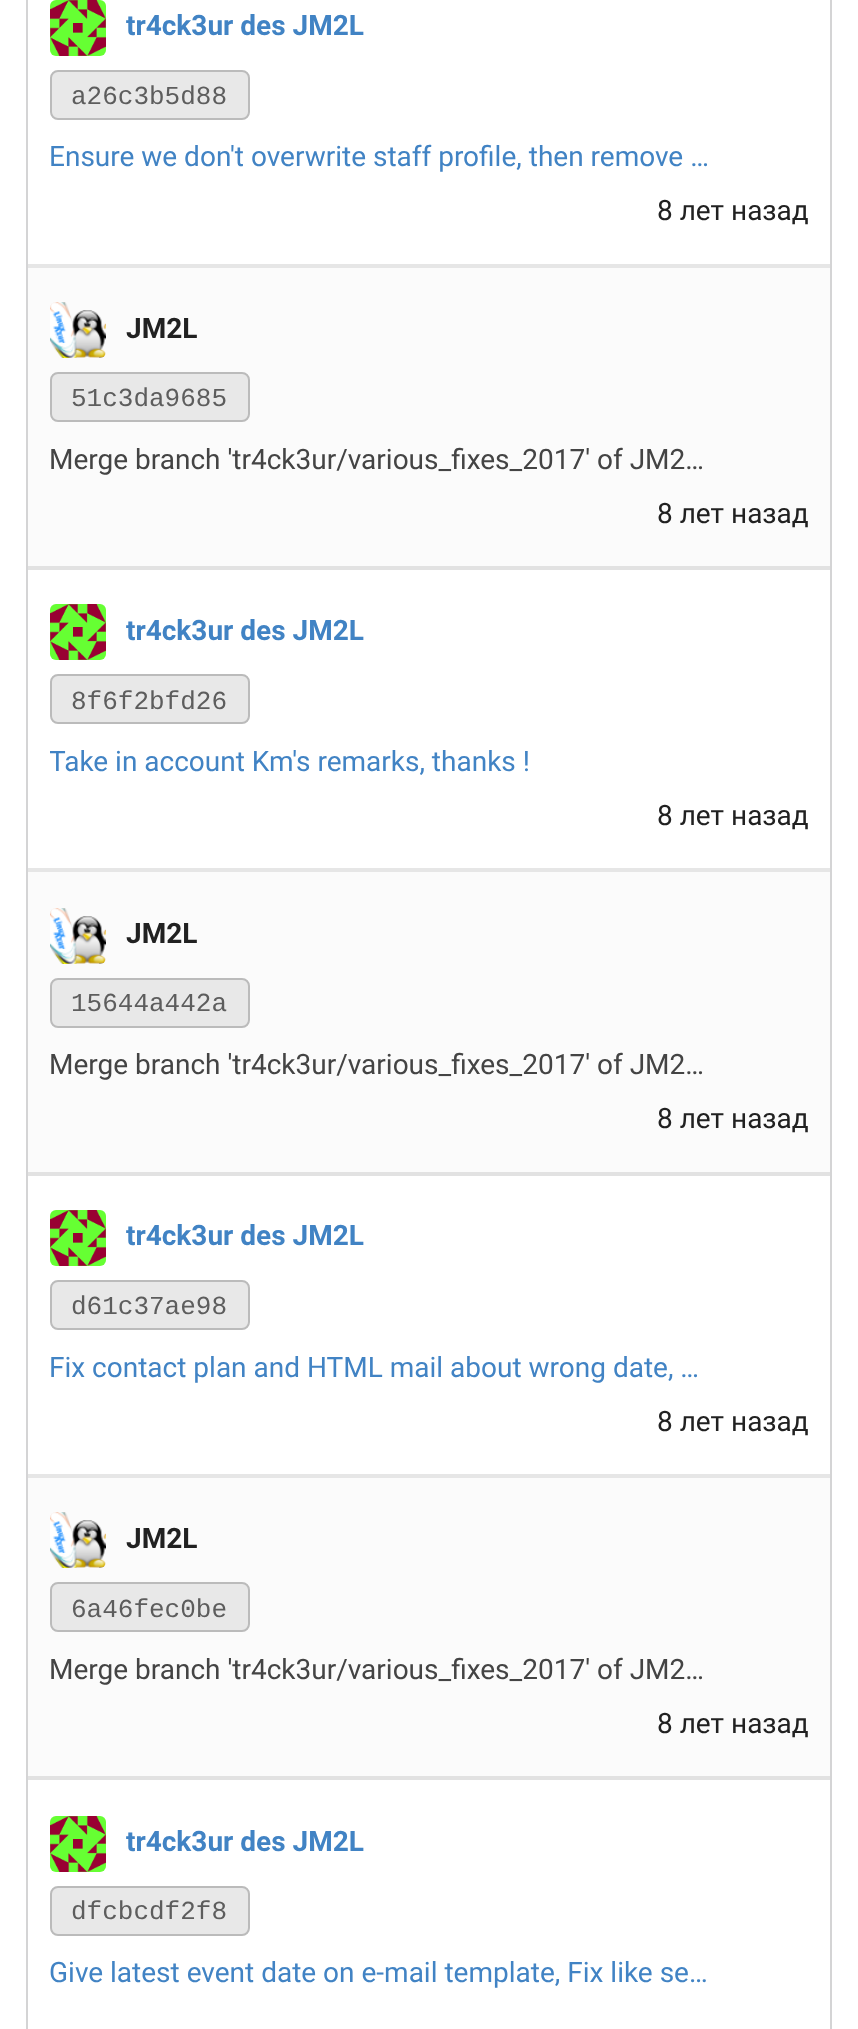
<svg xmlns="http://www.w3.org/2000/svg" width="858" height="2029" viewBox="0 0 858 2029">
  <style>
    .t1 { font: bold 28px Roboto; fill: #4183c4; }
    .t2 { font: 26px Liberation Mono; fill: #5d5d5d; }
    .t3 { font: 28px Roboto; fill: #4183c4; }
    .t4 { font: 28px Roboto; fill: #212121; }
    .t5 { font: bold 28px Roboto; fill: #212121; }
    .t6 { font: 28px Roboto; fill: #444; }
  </style>
  <defs>
    <clipPath id="clip1"><rect x="50" y="742" width="480" height="40"/></clipPath>
  </defs>
  <rect width="100%" height="100%" fill="#fff"/>
  <rect x="830" y="0" width="2" height="2029" fill="#d4d4d5"/>
  <rect x="26" y="0" width="2" height="2029" fill="#d4d4d5"/>
  <rect x="28" y="264" width="802" height="4" fill="#e6e6e6"/>
  <image x="50" y="0" width="56" height="56" href="images/1.png"/>
  <text x="126" y="35" class="t1">tr4ck3ur des JM2L</text>
  <rect x="51" y="71" width="198" height="48" rx="7" fill="#e8e8e8" stroke="#bbb" stroke-width="2"/>
  <text x="71" y="104" class="t2">a26c3b5d88</text>
  <text x="49" y="166" class="t3">Ensure we don't overwrite staff profile, then remove …</text>
  <text x="657" y="220" class="t4">8 лет назад</text>
  <rect x="28" y="268" width="802" height="298" fill="#fbfbfb"/>
  <rect x="28" y="566" width="802" height="4" fill="#e2e2e2"/>
  <image x="50" y="302" width="56" height="56" href="images/2.png"/>
  <text x="126" y="338" class="t5">JM2L</text>
  <rect x="51" y="373" width="198" height="48" rx="7" fill="#e8e8e8" stroke="#bbb" stroke-width="2"/>
  <text x="71" y="406" class="t2">51c3da9685</text>
  <text x="49" y="469" class="t6">Merge branch 'tr4ck3ur/various_fixes_2017' of JM2…</text>
  <text x="657" y="523" class="t4">8 лет назад</text>
  <rect x="28" y="868" width="802" height="4" fill="#e6e6e6"/>
  <image x="50" y="604" width="56" height="56" href="images/3.png"/>
  <text x="126" y="640" class="t1">tr4ck3ur des JM2L</text>
  <rect x="51" y="675" width="198" height="48" rx="7" fill="#e8e8e8" stroke="#bbb" stroke-width="2"/>
  <text x="71" y="709" class="t2">8f6f2bfd26</text>
  <g clip-path="url(#clip1)">
    <text x="49" y="771" class="t3">Take in account Km's remarks, thanks !</text>
  </g>
  <text x="657" y="825" class="t4">8 лет назад</text>
  <rect x="28" y="872" width="802" height="300" fill="#fbfbfb"/>
  <rect x="28" y="1172" width="802" height="4" fill="#e2e2e2"/>
  <image x="50" y="908" width="56" height="56" href="images/2.png"/>
  <text x="126" y="943" class="t5">JM2L</text>
  <rect x="51" y="979" width="198" height="48" rx="7" fill="#e8e8e8" stroke="#bbb" stroke-width="2"/>
  <text x="71" y="1011" class="t2">15644a442a</text>
  <text x="49" y="1074" class="t6">Merge branch 'tr4ck3ur/various_fixes_2017' of JM2…</text>
  <text x="657" y="1128" class="t4">8 лет назад</text>
  <rect x="28" y="1474" width="802" height="4" fill="#e6e6e6"/>
  <image x="50" y="1210" width="56" height="56" href="images/4.png"/>
  <text x="126" y="1245" class="t1">tr4ck3ur des JM2L</text>
  <rect x="51" y="1281" width="198" height="48" rx="7" fill="#e8e8e8" stroke="#bbb" stroke-width="2"/>
  <text x="71" y="1314" class="t2">d61c37ae98</text>
  <text x="49" y="1377" class="t3">Fix contact plan and HTML mail about wrong date, …</text>
  <text x="657" y="1431" class="t4">8 лет назад</text>
  <rect x="28" y="1478" width="802" height="298" fill="#fbfbfb"/>
  <rect x="28" y="1776" width="802" height="4" fill="#e2e2e2"/>
  <image x="50" y="1512" width="56" height="56" href="images/2.png"/>
  <text x="126" y="1548" class="t5">JM2L</text>
  <rect x="51" y="1583" width="198" height="48" rx="7" fill="#e8e8e8" stroke="#bbb" stroke-width="2"/>
  <text x="71" y="1617" class="t2">6a46fec0be</text>
  <text x="49" y="1679" class="t6">Merge branch 'tr4ck3ur/various_fixes_2017' of JM2…</text>
  <text x="657" y="1733" class="t4">8 лет назад</text>
  <image x="50" y="1816" width="56" height="56" href="images/5.png"/>
  <text x="126" y="1851" class="t1">tr4ck3ur des JM2L</text>
  <rect x="51" y="1887" width="198" height="48" rx="7" fill="#e8e8e8" stroke="#bbb" stroke-width="2"/>
  <text x="71" y="1919" class="t2">dfcbcdf2f8</text>
  <text x="49" y="1982" class="t3">Give latest event date on e-mail template, Fix like se…</text>
</svg>
